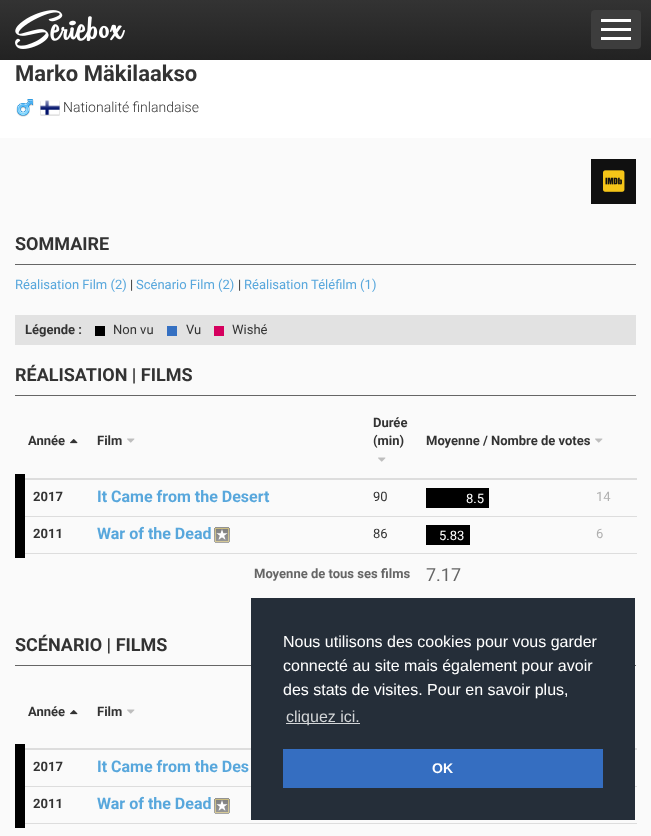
<svg xmlns="http://www.w3.org/2000/svg" width="651" height="836" viewBox="0 0 651 836">
  <style>
    .t1 { font: bold 22px Roboto; fill: #333; }
    .t2 { font: 300 14px Roboto; fill: #333; }
    .t3 { font: bold 18px Roboto; fill: #333; }
    .t4 { font: 13px Roboto; fill: #58a7dc; }
    .t5 { font: 13px Roboto; fill: #333; }
    .t6 { font: bold 13px Roboto; fill: #333; }
    .t7 { font: bold 16px Roboto; fill: #58a7dc; }
    .t8 { font: 13px Roboto; fill: #fff; }
    .t9 { font: 13px Roboto; fill: #b0b0b0; }
    .t10 { font: bold 13px Roboto; fill: #666; }
    .t11 { font: 18px Roboto; fill: #666; }
    .t12 { font: 16px Liberation Sans; fill: #fff; }
    .t13 { font: 16px Liberation Sans; fill: #d3d5d7; }
    .t14 { font: bold 14px Liberation Sans; fill: #fff; }
  </style>
  <defs>
    <linearGradient id="g1" gradientUnits="userSpaceOnUse" x1="326" y1="0" x2="326" y2="60"><stop offset="0" stop-color="#333"/><stop offset="1" stop-color="#222"/></linearGradient>
  </defs>
  <rect width="100%" height="100%" fill="#fafafa"/>
  <rect x="0" y="0" width="651" height="60" fill="url(#g1)"/>
  <image x="15" y="10" width="110" height="39" href="images/1.png"/>
  <rect x="591" y="10" width="50" height="39" rx="4" fill="#3d3d3d"/>
  <rect x="601" y="19" width="30" height="3" fill="#fff"/>
  <rect x="601" y="28" width="30" height="3" fill="#fff"/>
  <rect x="601" y="37" width="30" height="3" fill="#fff"/>
  <rect x="0" y="60" width="651" height="78" fill="#fff"/>
  <text x="15" y="81" class="t1">Marko Mäkilaakso</text>
  <image x="16" y="99" width="18" height="18" href="images/2.png"/>
  <image x="40" y="100" width="20" height="16" href="images/3.png"/>
  <text x="63" y="112" class="t2">Nationalité finlandaise</text>
  <rect x="591" y="159" width="45" height="45" fill="#101010"/>
  <image x="603" y="170" width="22" height="22" href="images/4.png"/>
  <rect x="15" y="264" width="621" height="1" fill="#666"/>
  <text x="15" y="250" class="t3">SOMMAIRE</text>
  <text x="15" y="289" class="t4">Réalisation Film (2)</text>
  <text x="130" y="289" class="t5">|</text>
  <text x="136" y="289" class="t4">Scénario Film (2)</text>
  <text x="238" y="289" class="t5">|</text>
  <text x="244" y="289" class="t4">Réalisation Téléfilm (1)</text>
  <rect x="15" y="315" width="621" height="30" fill="#e2e2e2"/>
  <text x="25" y="334" class="t6">Légende :</text>
  <rect x="95" y="326" width="10" height="10" fill="#000"/>
  <text x="113" y="334" class="t5">Non vu</text>
  <rect x="167" y="326" width="10" height="10" fill="#3570c2"/>
  <text x="186" y="334" class="t5">Vu</text>
  <rect x="214" y="326" width="10" height="10" fill="#d5005e"/>
  <text x="232" y="334" class="t5">Wishé</text>
  <rect x="15" y="395" width="621" height="1" fill="#666"/>
  <text x="15" y="381" class="t3">RÉALISATION | FILMS</text>
  <text x="28" y="445" class="t6">Année</text>
  <image x="70" y="439" width="8" height="5" href="images/5.png"/>
  <text x="97" y="445" class="t6">Film</text>
  <image x="127" y="438" width="8" height="5" href="images/6.png"/>
  <text x="373" y="427" class="t6">Durée</text>
  <text x="373" y="445" class="t6">(min)</text>
  <image x="378" y="457" width="8" height="5" href="images/6.png"/>
  <rect x="19" y="478" width="618" height="2" fill="#ddd"/>
  <text x="426" y="445" class="t6">Moyenne / Nombre de votes</text>
  <image x="595" y="438" width="8" height="5" href="images/6.png"/>
  <text x="33" y="501" class="t6">2017</text>
  <text x="97" y="502" class="t7">It Came from the Desert</text>
  <text x="373" y="501" class="t5">90</text>
  <rect x="426" y="488" width="63" height="20" fill="#000"/>
  <text x="466" y="503" class="t8">8.5</text>
  <text x="596" y="501" class="t9">14</text>
  <rect x="20" y="516" width="617" height="1" fill="#ddd"/>
  <rect x="20" y="553" width="617" height="1" fill="#ddd"/>
  <rect x="15" y="474" width="10" height="84" fill="#000"/>
  <text x="33" y="538" class="t6">2011</text>
  <text x="97" y="539" class="t7">War of the Dead</text>
  <image x="214" y="527" width="16" height="16" href="images/7.png"/>
  <text x="373" y="538" class="t5">86</text>
  <rect x="426" y="525" width="44" height="20" fill="#000"/>
  <text x="439" y="540" class="t8">5.83</text>
  <text x="596" y="538" class="t9">6</text>
  <text x="254" y="578" class="t10">Moyenne de tous ses films</text>
  <text x="426" y="581" class="t11">7.17</text>
  <rect x="15" y="665" width="621" height="1" fill="#666"/>
  <text x="15" y="651" class="t3">SCÉNARIO | FILMS</text>
  <text x="28" y="716" class="t6">Année</text>
  <image x="70" y="710" width="8" height="5" href="images/5.png"/>
  <rect x="19" y="748" width="232" height="2" fill="#ddd"/>
  <text x="97" y="716" class="t6">Film</text>
  <image x="127" y="709" width="8" height="5" href="images/6.png"/>
  <rect x="635" y="748" width="2" height="2" fill="#ddd"/>
  <text x="33" y="771" class="t6">2017</text>
  <text x="97" y="772" class="t7">It Came from the Des</text>
  <rect x="20" y="786" width="231" height="1" fill="#ddd"/>
  <rect x="20" y="823" width="617" height="1" fill="#ddd"/>
  <rect x="15" y="744" width="10" height="84" fill="#000"/>
  <rect x="635" y="786" width="2" height="1" fill="#ddd"/>
  <text x="33" y="808" class="t6">2011</text>
  <text x="97" y="809" class="t7">War of the Dead</text>
  <image x="214" y="798" width="16" height="16" href="images/7.png"/>
  <rect x="251" y="598" width="384" height="222" fill="#252e39"/>
  <text x="283" y="647" class="t12">Nous utilisons des cookies pour vous garder</text>
  <text x="283" y="671" class="t12">connecté au site mais également pour avoir</text>
  <text x="283" y="695" class="t12">des stats de visites. Pour en savoir plus,</text>
  <rect x="286" y="723" width="74" height="1" fill="#d3d5d7"/>
  <text x="286" y="722" class="t13">cliquez ici.</text>
  <rect x="283" y="749" width="320" height="39" fill="#356ec1"/>
  <text x="432" y="773" class="t14">OK</text>
</svg>
